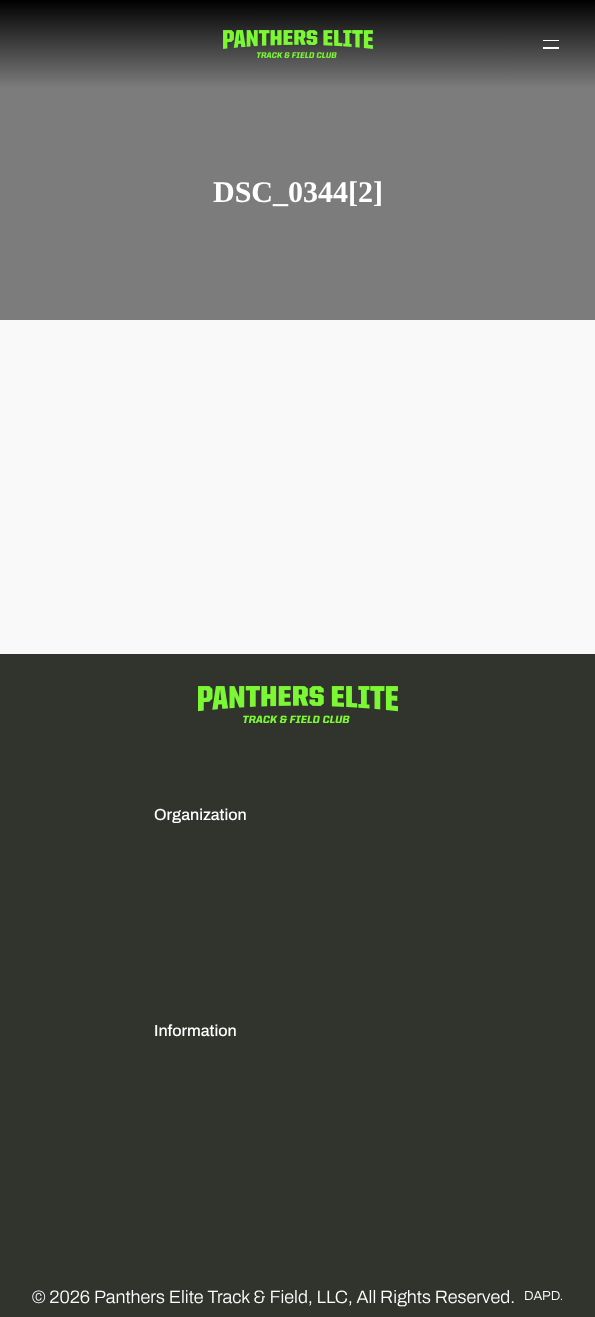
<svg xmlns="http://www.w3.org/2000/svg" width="595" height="1317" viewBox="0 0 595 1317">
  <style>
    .t1 { font: bold 30px Liberation Serif; fill: #fff; }
    .t2 { font: 500 16px Archivo; fill: #fff; }
    .t3 { font: 300 18px Archivo; fill: #fff; }
    .t4 { font: 300 13px Archivo; fill: #fff; }
  </style>
  <defs>
    <linearGradient id="g1" gradientUnits="userSpaceOnUse" x1="298" y1="0" x2="298" y2="88"><stop offset="0" stop-color="#000"/><stop offset="1" stop-color="#7c7c7c"/></linearGradient>
  </defs>
  <rect width="100%" height="100%" fill="#f9f9f9"/>
  <rect x="0" y="0" width="595" height="88" fill="url(#g1)"/>
  <image x="223" y="30" width="150" height="28" href="images/1.png"/>
  <rect x="543" y="40" width="16" height="1" fill="#fff"/>
  <rect x="543" y="47" width="16" height="2" fill="#fff"/>
  <rect x="0" y="88" width="595" height="232" fill="#7c7c7c"/>
  <text x="213" y="202" class="t1">DSC_0344[2]</text>
  <rect x="0" y="654" width="595" height="663" fill="#30342d"/>
  <image x="198" y="686" width="200" height="37" href="images/2.png"/>
  <text x="154" y="820" class="t2">Organization</text>
  <text x="154" y="1036" class="t2">Information</text>
  <text x="32" y="1303" class="t3">© 2026 Panthers Elite Track &amp; Field, LLC, All Rights Reserved.</text>
  <text x="524" y="1300" class="t4">DAPD.</text>
</svg>
